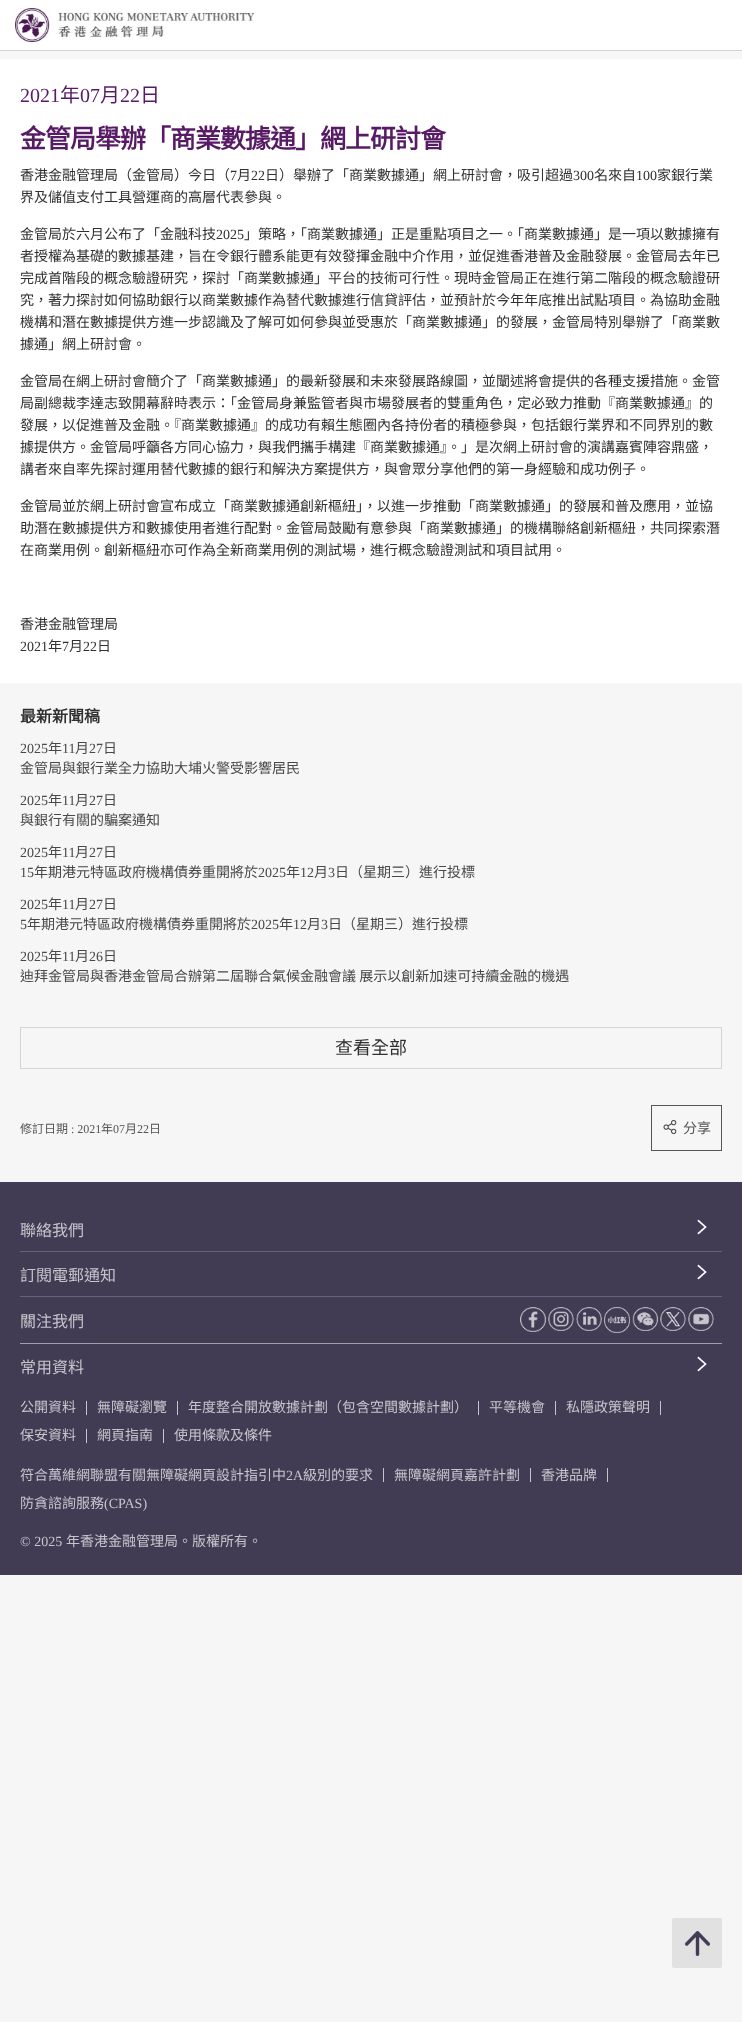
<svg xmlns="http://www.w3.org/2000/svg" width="742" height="2022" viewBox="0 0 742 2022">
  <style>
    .t1 { font: 20px Liberation Serif; fill: #571a64; }
    .t2 { font: 20px Noto Sans CJK HK; fill: #571a64; }
    .t3 { font: bold 26px Noto Sans CJK HK; letter-spacing: -1px; fill: #571a64; }
    .t4 { font: 14px Noto Sans CJK HK; fill: #303030; }
    .t5 { font: 14px Liberation Serif; fill: #303030; }
    .t6 { font: bold 16px Noto Sans CJK HK; fill: #303030; }
    .t7 { font: 14px Liberation Serif; fill: #484848; }
    .t8 { font: 14px Noto Sans CJK HK; fill: #484848; }
    .t9 { font: 18px Noto Sans CJK HK; fill: #303030; }
    .t10 { font: 12px Noto Sans CJK HK; fill: #555; }
    .t11 { font: 12px Liberation Serif; fill: #555; }
    .t12 { font: 14px Noto Sans CJK HK; fill: #555; }
    .t13 { font: 16px Noto Sans CJK HK; fill: #c6c5cc; }
    .t14 { font: 14px Noto Sans CJK HK; fill: #c6c5cc; }
    .t15 { font: 14px Liberation Serif; fill: #c6c5cc; }
  </style>
  <rect width="100%" height="100%" fill="#f6f6f6"/>
  <rect x="0" y="0" width="742" height="50" fill="#fff"/>
  <rect x="0" y="50" width="742" height="1" fill="#d4d4d4"/>
  <image x="15" y="8" width="239" height="34" href="images/1.png"/>
  <rect x="0" y="59" width="742" height="624" fill="#fff"/>
  <text x="20" y="102" class="t1">2021</text>
  <text x="60" y="102" class="t2">年</text>
  <text x="80" y="102" class="t1">07</text>
  <text x="100" y="102" class="t2">月</text>
  <text x="120" y="102" class="t1">22</text>
  <text x="140" y="102" class="t2">日</text>
  <text x="20" y="148" class="t3">金管局舉辦「商業數據通」網上研討會</text>
  <text x="20" y="180" class="t4">香港金融管理局（金管局）今日（</text>
  <text x="230" y="180" class="t5">7</text>
  <text x="237" y="180" class="t4">月</text>
  <text x="251" y="180" class="t5">22</text>
  <text x="265" y="180" class="t4">日）舉辦了「商業數據通」網上研討會，吸引超過</text>
  <text x="573" y="180" class="t5">300</text>
  <text x="594" y="180" class="t4">名來自</text>
  <text x="636" y="180" class="t5">100</text>
  <text x="657" y="180" class="t4">家銀行業</text>
  <text x="20" y="202" class="t4">界及儲值支付工具營運商的高層代表參與。</text>
  <text x="20" y="239" class="t4">金管局於六月公布了「金融科技</text>
  <text x="216" y="239" class="t5">2025</text>
  <text x="244" y="239" class="t4">」策略，「商業數據通」正是重點項目之一。「商業數據通」是一項以數據擁有</text>
  <text x="20" y="261" class="t4">者授權為基礎的數據基建，旨在令銀行體系能更有效發揮金融中介作用，並促進香港普及金融發展。金管局去年已</text>
  <text x="20" y="283" class="t4">完成首階段的概念驗證研究，探討「商業數據通」平台的技術可行性。現時金管局正在進行第二階段的概念驗證研</text>
  <text x="20" y="305" class="t4">究，著力探討如何協助銀行以商業數據作為替代數據進行信貸評估，並預計於今年年底推出試點項目。為協助金融</text>
  <text x="20" y="327" class="t4">機構和潛在數據提供方進一步認識及了解可如何參與並受惠於「商業數據通」的發展，金管局特別舉辦了「商業數</text>
  <text x="20" y="349" class="t4">據通」網上研討會。</text>
  <text x="20" y="386" class="t4">金管局在網上研討會簡介了「商業數據通」的最新發展和未來發展路線圖，並闡述將會提供的各種支援措施。金管</text>
  <text x="20" y="408" class="t4">局副總裁李達志致開幕辭時表示：「金管局身兼監管者與市場發展者的雙重角色，定必致力推動『商業數據通』的</text>
  <text x="20" y="430" class="t4">發展，以促進普及金融。『商業數據通』的成功有賴生態圈內各持份者的積極參與，包括銀行業界和不同界別的數</text>
  <text x="20" y="452" class="t4">據提供方。金管局呼籲各方同心協力，與我們攜手構建『商業數據通』。」是次網上研討會的演講嘉賓陣容鼎盛，</text>
  <text x="20" y="474" class="t4">講者來自率先探討運用替代數據的銀行和解決方案提供方，與會眾分享他們的第一身經驗和成功例子。</text>
  <text x="20" y="511" class="t4">金管局並於網上研討會宣布成立「商業數據通創新樞紐」，以進一步推動「商業數據通」的發展和普及應用，並協</text>
  <text x="20" y="533" class="t4">助潛在數據提供方和數據使用者進行配對。金管局鼓勵有意參與「商業數據通」的機構聯絡創新樞紐，共同探索潛</text>
  <text x="20" y="555" class="t4">在商業用例。創新樞紐亦可作為全新商業用例的測試場，進行概念驗證測試和項目試用。</text>
  <text x="20" y="629" class="t4">香港金融管理局</text>
  <text x="20" y="651" class="t5">2021</text>
  <text x="48" y="651" class="t4">年</text>
  <text x="62" y="651" class="t5">7</text>
  <text x="69" y="651" class="t4">月</text>
  <text x="83" y="651" class="t5">22</text>
  <text x="97" y="651" class="t4">日</text>
  <text x="20" y="722" class="t6">最新新聞稿</text>
  <text x="20" y="753" class="t7">2025</text>
  <text x="48" y="753" class="t8">年</text>
  <text x="62" y="753" class="t7">11</text>
  <text x="75" y="753" class="t8">月</text>
  <text x="89" y="753" class="t7">27</text>
  <text x="103" y="753" class="t8">日</text>
  <text x="20" y="773" class="t8">金管局與銀行業全力協助大埔火警受影響居民</text>
  <text x="20" y="805" class="t7">2025</text>
  <text x="48" y="805" class="t8">年</text>
  <text x="62" y="805" class="t7">11</text>
  <text x="75" y="805" class="t8">月</text>
  <text x="89" y="805" class="t7">27</text>
  <text x="103" y="805" class="t8">日</text>
  <text x="20" y="825" class="t8">與銀行有關的騙案通知</text>
  <text x="20" y="857" class="t7">2025</text>
  <text x="48" y="857" class="t8">年</text>
  <text x="62" y="857" class="t7">11</text>
  <text x="75" y="857" class="t8">月</text>
  <text x="89" y="857" class="t7">27</text>
  <text x="103" y="857" class="t8">日</text>
  <text x="20" y="877" class="t7">15</text>
  <text x="34" y="877" class="t8">年期港元特區政府機構債券重開將於</text>
  <text x="258" y="877" class="t7">2025</text>
  <text x="286" y="877" class="t8">年</text>
  <text x="300" y="877" class="t7">12</text>
  <text x="314" y="877" class="t8">月</text>
  <text x="328" y="877" class="t7">3</text>
  <text x="335" y="877" class="t8">日（星期三）進行投標</text>
  <text x="20" y="909" class="t7">2025</text>
  <text x="48" y="909" class="t8">年</text>
  <text x="62" y="909" class="t7">11</text>
  <text x="75" y="909" class="t8">月</text>
  <text x="89" y="909" class="t7">27</text>
  <text x="103" y="909" class="t8">日</text>
  <text x="20" y="929" class="t7">5</text>
  <text x="27" y="929" class="t8">年期港元特區政府機構債券重開將於</text>
  <text x="251" y="929" class="t7">2025</text>
  <text x="279" y="929" class="t8">年</text>
  <text x="293" y="929" class="t7">12</text>
  <text x="307" y="929" class="t8">月</text>
  <text x="321" y="929" class="t7">3</text>
  <text x="328" y="929" class="t8">日（星期三）進行投標</text>
  <text x="20" y="961" class="t7">2025</text>
  <text x="48" y="961" class="t8">年</text>
  <text x="62" y="961" class="t7">11</text>
  <text x="75" y="961" class="t8">月</text>
  <text x="89" y="961" class="t7">26</text>
  <text x="103" y="961" class="t8">日</text>
  <text x="20" y="981" class="t8">迪拜金管局與香港金管局合辦第二屆聯合氣候金融會議 展示以創新加速可持續金融的機遇</text>
  <rect x="20.5" y="1027.5" width="701" height="41" fill="none" stroke="#d4d4d4"/>
  <text x="335" y="1054" class="t9">查看全部</text>
  <text x="20" y="1133" class="t10">修訂日期</text>
  <text x="71" y="1133" class="t11">: 2021</text>
  <text x="101" y="1133" class="t10">年</text>
  <text x="113" y="1133" class="t11">07</text>
  <text x="125" y="1133" class="t10">月</text>
  <text x="137" y="1133" class="t11">22</text>
  <text x="149" y="1133" class="t10">日</text>
  <rect x="651.5" y="1105.5" width="70" height="45" fill="none" stroke="#555"/>
  <image x="663" y="1120" width="14" height="14" href="images/2.png"/>
  <text x="683" y="1133" class="t12">分享</text>
  <rect x="0" y="1182" width="742" height="393" fill="#413c54"/>
  <rect x="20" y="1251" width="702" height="1" fill="#676376"/>
  <text x="20" y="1236" class="t13">聯絡我們</text>
  <image x="697" y="1219" width="10" height="16" href="images/3.png"/>
  <rect x="20" y="1296" width="702" height="1" fill="#676376"/>
  <text x="20" y="1281" class="t13">訂閱電郵通知</text>
  <image x="697" y="1264" width="10" height="16" href="images/3.png"/>
  <rect x="20" y="1343" width="702" height="1" fill="#a09eaa"/>
  <text x="20" y="1327" class="t13">關注我們</text>
  <image x="520" y="1307" width="26" height="25" href="images/4.png"/>
  <image x="548" y="1307" width="26" height="24" href="images/5.png"/>
  <image x="576" y="1307" width="26" height="24" href="images/6.png"/>
  <image x="604" y="1307" width="26" height="26" href="images/7.png"/>
  <image x="632" y="1307" width="26" height="24" href="images/8.png"/>
  <image x="660" y="1307" width="26" height="24" href="images/9.png"/>
  <image x="688" y="1307" width="26" height="24" href="images/10.png"/>
  <text x="20" y="1373" class="t13">常用資料</text>
  <image x="697" y="1356" width="10" height="16" href="images/3.png"/>
  <text x="20" y="1412" class="t14">公開資料</text>
  <rect x="86" y="1401" width="1" height="14" fill="#c6c5cc"/>
  <text x="97" y="1412" class="t14">無障礙瀏覽</text>
  <rect x="177" y="1401" width="1" height="14" fill="#c6c5cc"/>
  <text x="188" y="1412" class="t14">年度整合開放數據計劃（包含空間數據計劃）</text>
  <rect x="478" y="1401" width="1" height="14" fill="#c6c5cc"/>
  <text x="489" y="1412" class="t14">平等機會</text>
  <rect x="555" y="1401" width="1" height="14" fill="#c6c5cc"/>
  <text x="566" y="1412" class="t14">私隱政策聲明</text>
  <rect x="660" y="1401" width="1" height="14" fill="#c6c5cc"/>
  <text x="20" y="1440" class="t14">保安資料</text>
  <rect x="86" y="1429" width="1" height="14" fill="#c6c5cc"/>
  <text x="97" y="1440" class="t14">網頁指南</text>
  <rect x="163" y="1429" width="1" height="14" fill="#c6c5cc"/>
  <text x="174" y="1440" class="t14">使用條款及條件</text>
  <text x="20" y="1480" class="t14">符合萬維網聯盟有關無障礙網頁設計指引中</text>
  <text x="286" y="1480" class="t15">2A</text>
  <text x="303" y="1480" class="t14">級別的要求</text>
  <rect x="383" y="1468" width="1" height="14" fill="#c6c5cc"/>
  <text x="394" y="1480" class="t14">無障礙網頁嘉許計劃</text>
  <rect x="530" y="1468" width="1" height="14" fill="#c6c5cc"/>
  <text x="541" y="1480" class="t14">香港品牌</text>
  <rect x="607" y="1468" width="1" height="14" fill="#c6c5cc"/>
  <text x="20" y="1508" class="t14">防貪諮詢服務</text>
  <text x="104" y="1508" class="t15">(CPAS)</text>
  <text x="20" y="1546" class="t15">© 2025</text>
  <text x="66" y="1546" class="t14">年香港金融管理局。版權所有。</text>
  <rect x="672" y="1918" width="50" height="50" rx="2" fill="#e1e1e1"/>
  <image x="684" y="1930" width="26" height="26" href="images/11.png"/>
</svg>
